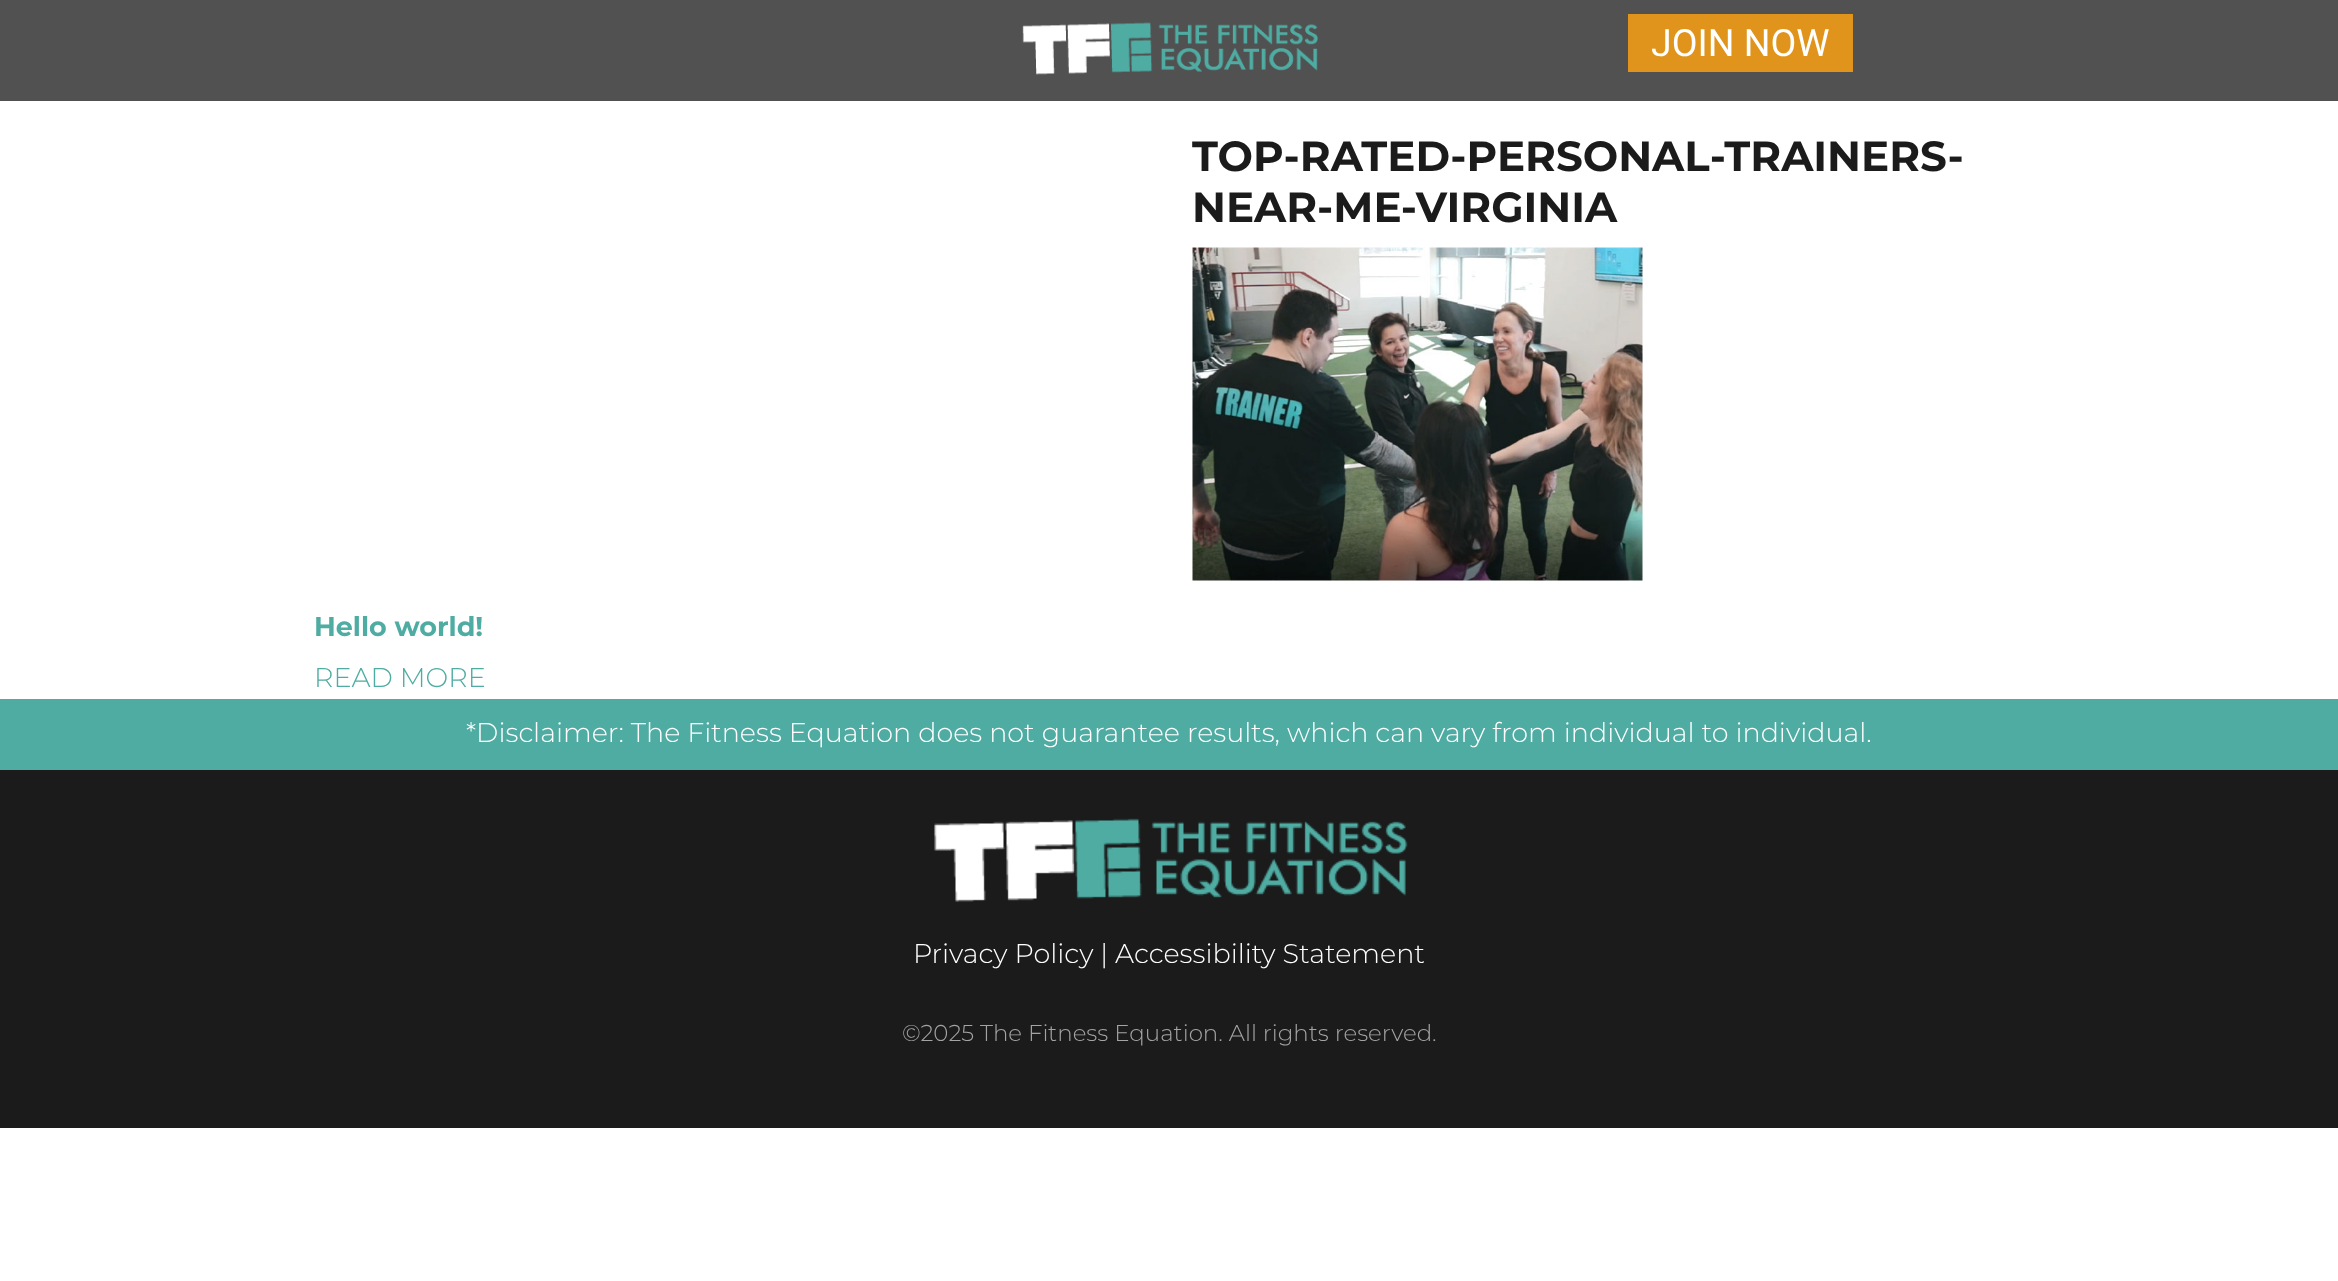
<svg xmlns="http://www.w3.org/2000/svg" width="2338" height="1281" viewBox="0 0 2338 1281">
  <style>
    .t1 { font: 37.5px Roboto; fill: #fff; }
    .t2 { font: bold 42px Montserrat; fill: #1b1b1b; }
    .t3 { font: bold 27px Montserrat; fill: #4faca3; }
    .t4 { font: 300 27px Montserrat; fill: #4faca3; }
    .t5 { font: 300 27px Montserrat; fill: #fff; }
    .t6 { font: 300 22.95px Montserrat; fill: #a4a4a4; }
  </style>
  <rect width="100%" height="100%" fill="#fff"/>
  <rect x="0" y="0" width="2338" height="101" fill="#515151"/>
  <image x="1022" y="22" width="297" height="53" href="images/1.png"/>
  <rect x="1628" y="14" width="225" height="58" fill="#e0941b"/>
  <text x="1651" y="56" class="t1">JOIN NOW</text>
  <text x="1192" y="171" class="t2">TOP-RATED-PERSONAL-TRAINERS-</text>
  <text x="1192" y="222" class="t2">NEAR-ME-VIRGINIA</text>
  <image x="1192" y="247" width="451" height="334" href="images/2.png"/>
  <text x="314" y="636" class="t3">Hello world!</text>
  <text x="314" y="687" class="t4">READ MORE</text>
  <rect x="0" y="699" width="2338" height="71" fill="#4faca3"/>
  <text x="466" y="742" class="t5">*Disclaimer: The Fitness Equation does not guarantee results, which can vary from individual to individual.</text>
  <rect x="0" y="770" width="2338" height="358" fill="#1b1b1b"/>
  <image x="934" y="818" width="474" height="84" href="images/3.png"/>
  <text x="913" y="963" class="t5">Privacy Policy | Accessibility Statement</text>
  <text x="902" y="1041" class="t6">©2025 The Fitness Equation. All rights reserved.</text>
</svg>
